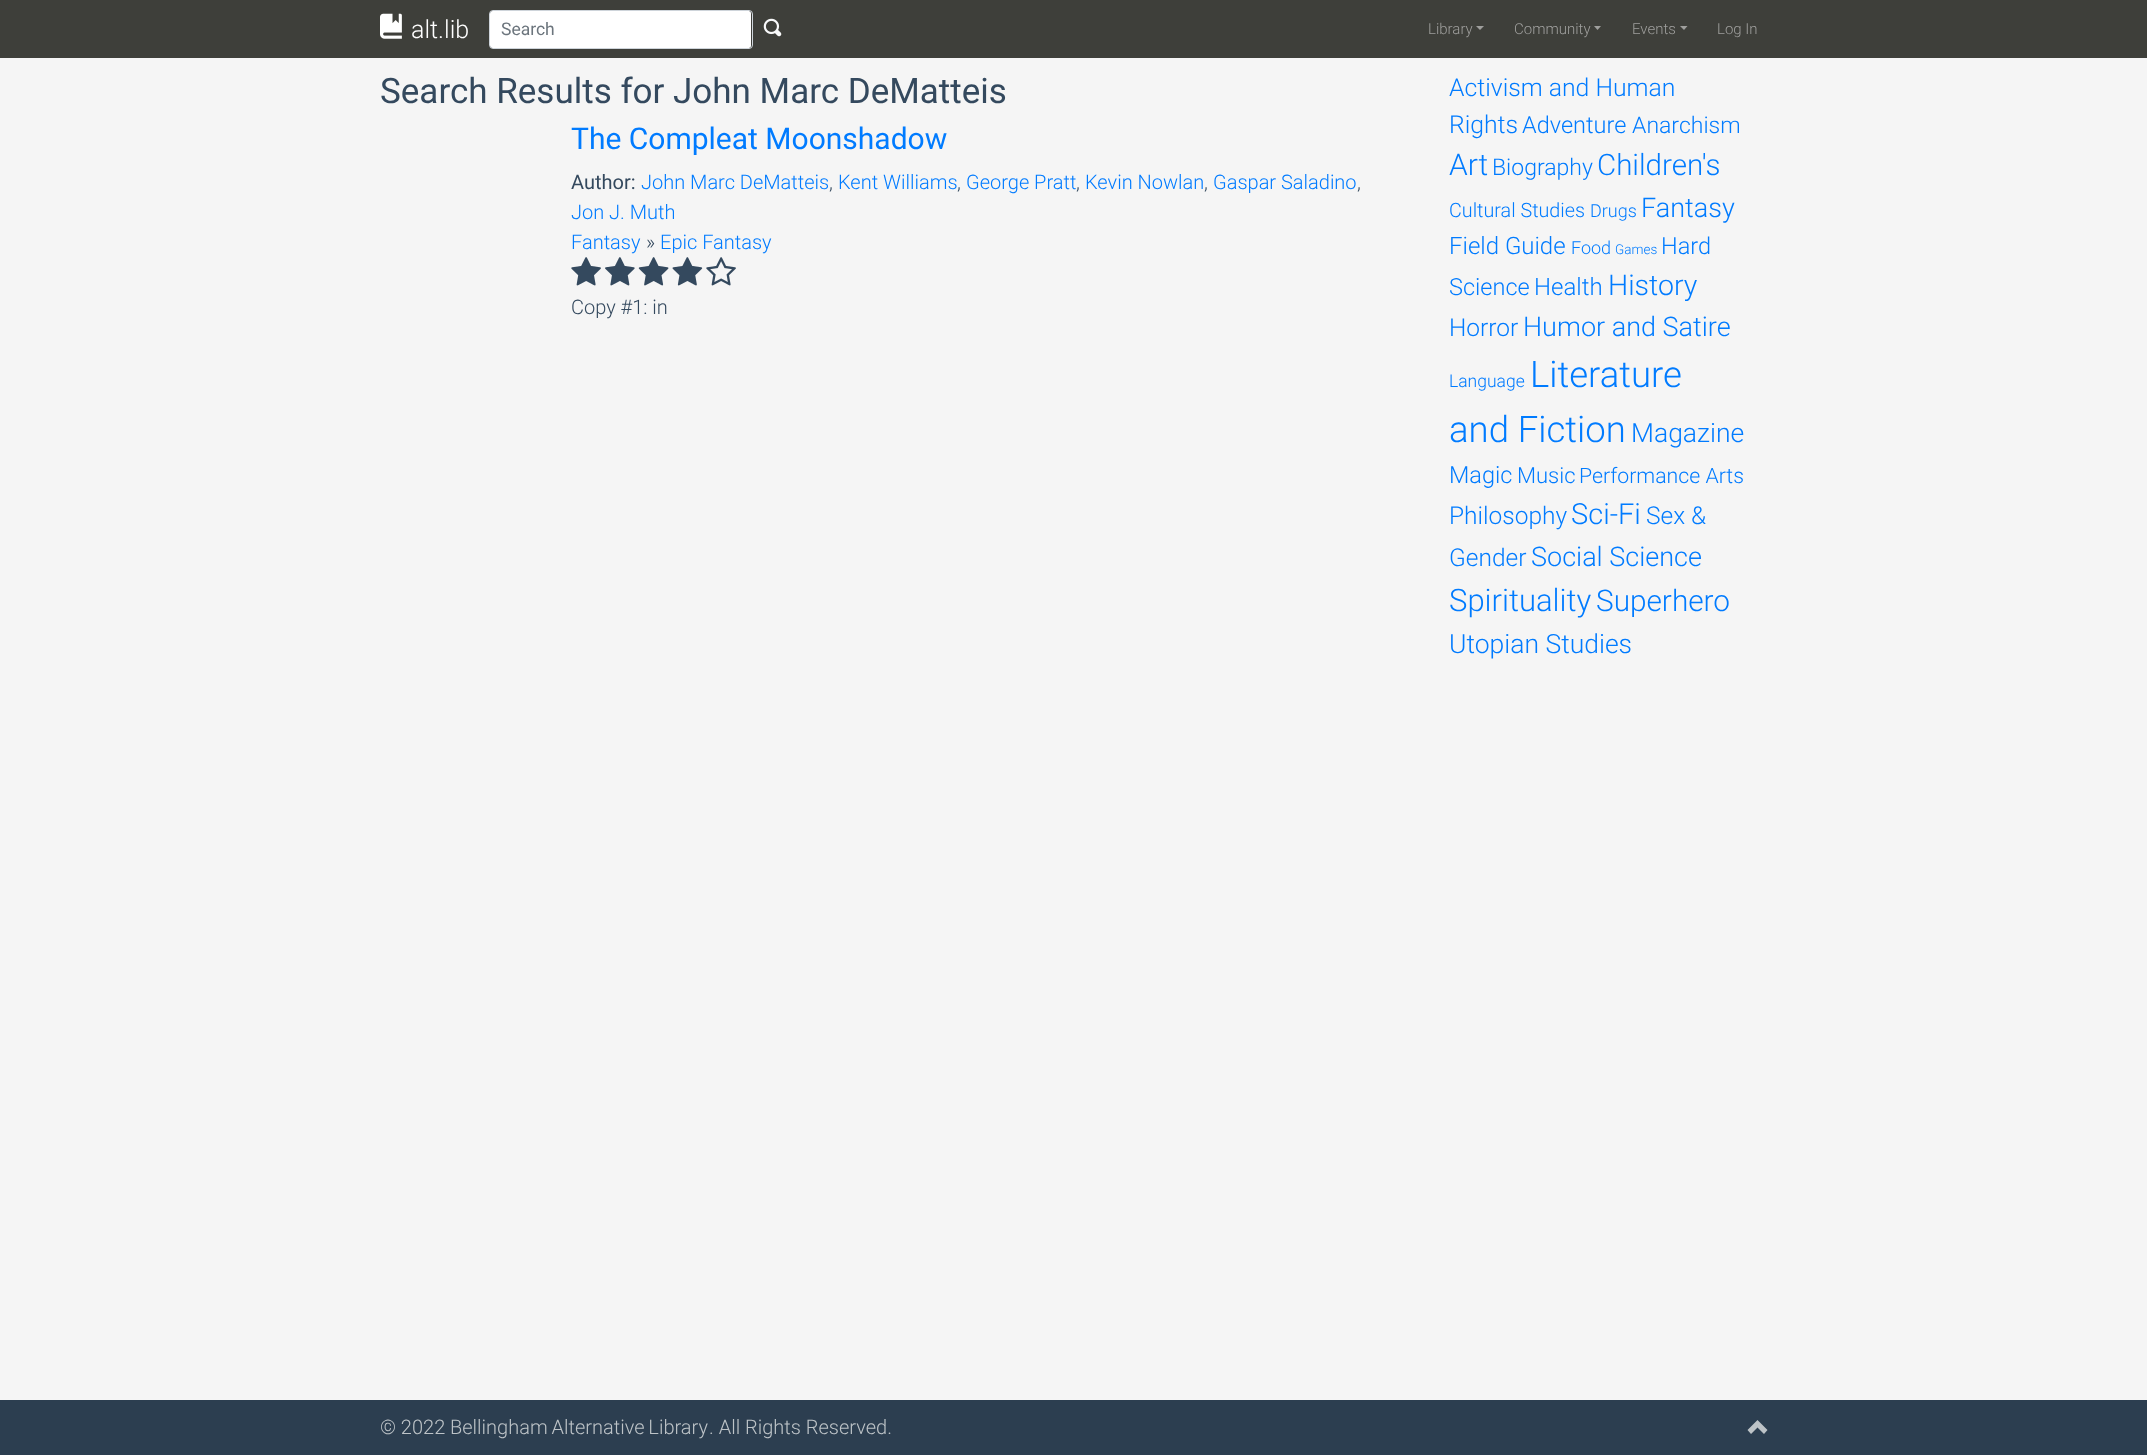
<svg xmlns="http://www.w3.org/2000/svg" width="2147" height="1455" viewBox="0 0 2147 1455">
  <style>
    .t1 { font: 300 25px Roboto; fill: #fff; }
    .t2 { font: 17.5px Roboto; fill: #6c757d; }
    .t3 { font: 300 15px Roboto; fill: #9f9f9d; }
    .t4 { font: 35px Roboto; fill: #34495e; }
    .t5 { font: 30px Roboto; fill: #007bff; }
    .t6 { font: 20px Roboto; fill: #34495e; }
    .t7 { font: 300 20px Roboto; fill: #007bff; }
    .t8 { font: 300 20px Roboto; fill: #34495e; }
    .t9 { font: 300 24.75px Roboto; fill: #007bff; }
    .t10 { font: 300 23.5px Roboto; fill: #007bff; }
    .t11 { font: 300 23px Roboto; fill: #007bff; }
    .t12 { font: 300 30px Roboto; fill: #007bff; }
    .t13 { font: 300 29.5px Roboto; fill: #007bff; }
    .t14 { font: 300 19.75px Roboto; fill: #007bff; }
    .t15 { font: 300 18px Roboto; fill: #007bff; }
    .t16 { font: 300 27px Roboto; fill: #007bff; }
    .t17 { font: 300 24px Roboto; fill: #007bff; }
    .t18 { font: 300 13.5px Roboto; fill: #007bff; }
    .t19 { font: 300 28.5px Roboto; fill: #007bff; }
    .t20 { font: 300 24.5px Roboto; fill: #007bff; }
    .t21 { font: 300 17.5px Roboto; fill: #007bff; }
    .t22 { font: 300 36.5px Roboto; fill: #007bff; }
    .t23 { font: 300 26.5px Roboto; fill: #007bff; }
    .t24 { font: 300 22px Roboto; fill: #007bff; }
    .t25 { font: 300 21.25px Roboto; fill: #007bff; }
    .t26 { font: 300 29px Roboto; fill: #007bff; }
    .t27 { font: 300 31px Roboto; fill: #007bff; }
    .t28 { font: 300 29.75px Roboto; fill: #007bff; }
    .t29 { font: 300 20px Roboto; fill: #bdc3c7; }
  </style>
  <rect width="100%" height="100%" fill="#f5f5f5"/>
  <rect x="0" y="0" width="2147" height="58" fill="#3e3f3a"/>
  <image x="380" y="13" width="22" height="26" href="images/1.png"/>
  <text x="411" y="38" class="t1">alt.lib</text>
  <rect x="490" y="11" width="261" height="37" rx="2.5" fill="#fff"/>
  <rect x="489.5" y="10.5" width="263" height="38" rx="3.5" fill="none" stroke="#ced4da"/>
  <text x="501" y="35" class="t2">Search</text>
  <image x="763" y="18" width="19" height="19" href="images/2.png"/>
  <text x="1428" y="34" class="t3">Library</text>
  <path d="M1476 26H1484L1480 30Z" fill="#9f9f9d"/>
  <text x="1514" y="34" class="t3">Community</text>
  <path d="M1594 26H1601L1597.5 30Z" fill="#9f9f9d"/>
  <text x="1632" y="34" class="t3">Events</text>
  <path d="M1680 26H1687.5L1684 30Z" fill="#9f9f9d"/>
  <text x="1717" y="34" class="t3">Log In</text>
  <text x="380" y="103" class="t4">Search Results for John Marc DeMatteis</text>
  <text x="571" y="149" class="t5">The Compleat Moonshadow</text>
  <text x="571" y="189" class="t6">Author:</text>
  <text x="641" y="189" class="t7">John Marc DeMatteis</text>
  <text x="829" y="189" class="t8">,</text>
  <text x="838" y="189" class="t7">Kent Williams</text>
  <text x="957" y="189" class="t8">,</text>
  <text x="966" y="189" class="t7">George Pratt</text>
  <text x="1076" y="189" class="t8">,</text>
  <text x="1085" y="189" class="t7">Kevin Nowlan</text>
  <text x="1204" y="189" class="t8">,</text>
  <text x="1213" y="189" class="t7">Gaspar Saladino</text>
  <text x="1357" y="189" class="t8">,</text>
  <text x="571" y="219" class="t7">Jon J. Muth</text>
  <text x="571" y="249" class="t7">Fantasy</text>
  <text x="646" y="249" class="t8">»</text>
  <text x="660" y="249" class="t7">Epic Fantasy</text>
  <image x="571" y="257" width="30" height="29" href="images/3.png"/>
  <image x="605" y="257" width="30" height="29" href="images/4.png"/>
  <image x="638" y="257" width="31" height="29" href="images/5.png"/>
  <image x="672" y="257" width="31" height="29" href="images/6.png"/>
  <image x="706" y="257" width="30" height="29" href="images/7.png"/>
  <text x="571" y="314" class="t8">Copy #1: in</text>
  <text x="1449" y="96" class="t9">Activism and Human</text>
  <text x="1449" y="133" class="t9">Rights</text>
  <text x="1522" y="133" class="t10">Adventure</text>
  <text x="1632" y="133" class="t11">Anarchism</text>
  <text x="1449" y="175" class="t12">Art</text>
  <text x="1492" y="175" class="t11">Biography</text>
  <text x="1597" y="175" class="t13">Children's</text>
  <text x="1449" y="217" class="t14">Cultural Studies</text>
  <text x="1590" y="217" class="t15">Drugs</text>
  <text x="1641" y="217" class="t16">Fantasy</text>
  <text x="1449" y="254" class="t17">Field Guide</text>
  <text x="1571" y="254" class="t15">Food</text>
  <text x="1615" y="254" class="t18">Games</text>
  <text x="1661" y="254" class="t10">Hard</text>
  <text x="1449" y="295" class="t10">Science</text>
  <text x="1534" y="295" class="t17">Health</text>
  <text x="1608" y="295" class="t19">History</text>
  <text x="1449" y="336" class="t20">Horror</text>
  <text x="1523" y="336" class="t16">Humor and Satire</text>
  <text x="1449" y="387" class="t21">Language</text>
  <text x="1530" y="387" class="t22">Literature</text>
  <text x="1449" y="442" class="t22">and Fiction</text>
  <text x="1631" y="442" class="t23">Magazine</text>
  <text x="1449" y="483" class="t10">Magic</text>
  <text x="1517" y="483" class="t24">Music</text>
  <text x="1579" y="483" class="t25">Performance Arts</text>
  <text x="1449" y="524" class="t20">Philosophy</text>
  <text x="1571" y="524" class="t26">Sci-Fi</text>
  <text x="1646" y="524" class="t20">Sex &amp;</text>
  <text x="1449" y="566" class="t20">Gender</text>
  <text x="1531" y="566" class="t16">Social Science</text>
  <text x="1449" y="611" class="t27">Spirituality</text>
  <text x="1596" y="611" class="t28">Superhero</text>
  <text x="1449" y="653" class="t23">Utopian Studies</text>
  <rect x="0" y="1400" width="2147" height="55" fill="#2c3e50"/>
  <text x="380" y="1434" class="t29">© 2022</text>
  <text x="450" y="1434" word-spacing="-1" class="t29">Bellingham Alternative Library</text>
  <text x="709" y="1434" class="t29">. All Rights Reserved.</text>
  <path d="M1757.5 1420L1767.5 1430L1764 1434L1757.5 1427.5L1751 1434L1747.5 1430Z" fill="#bdc3c7"/>
</svg>
